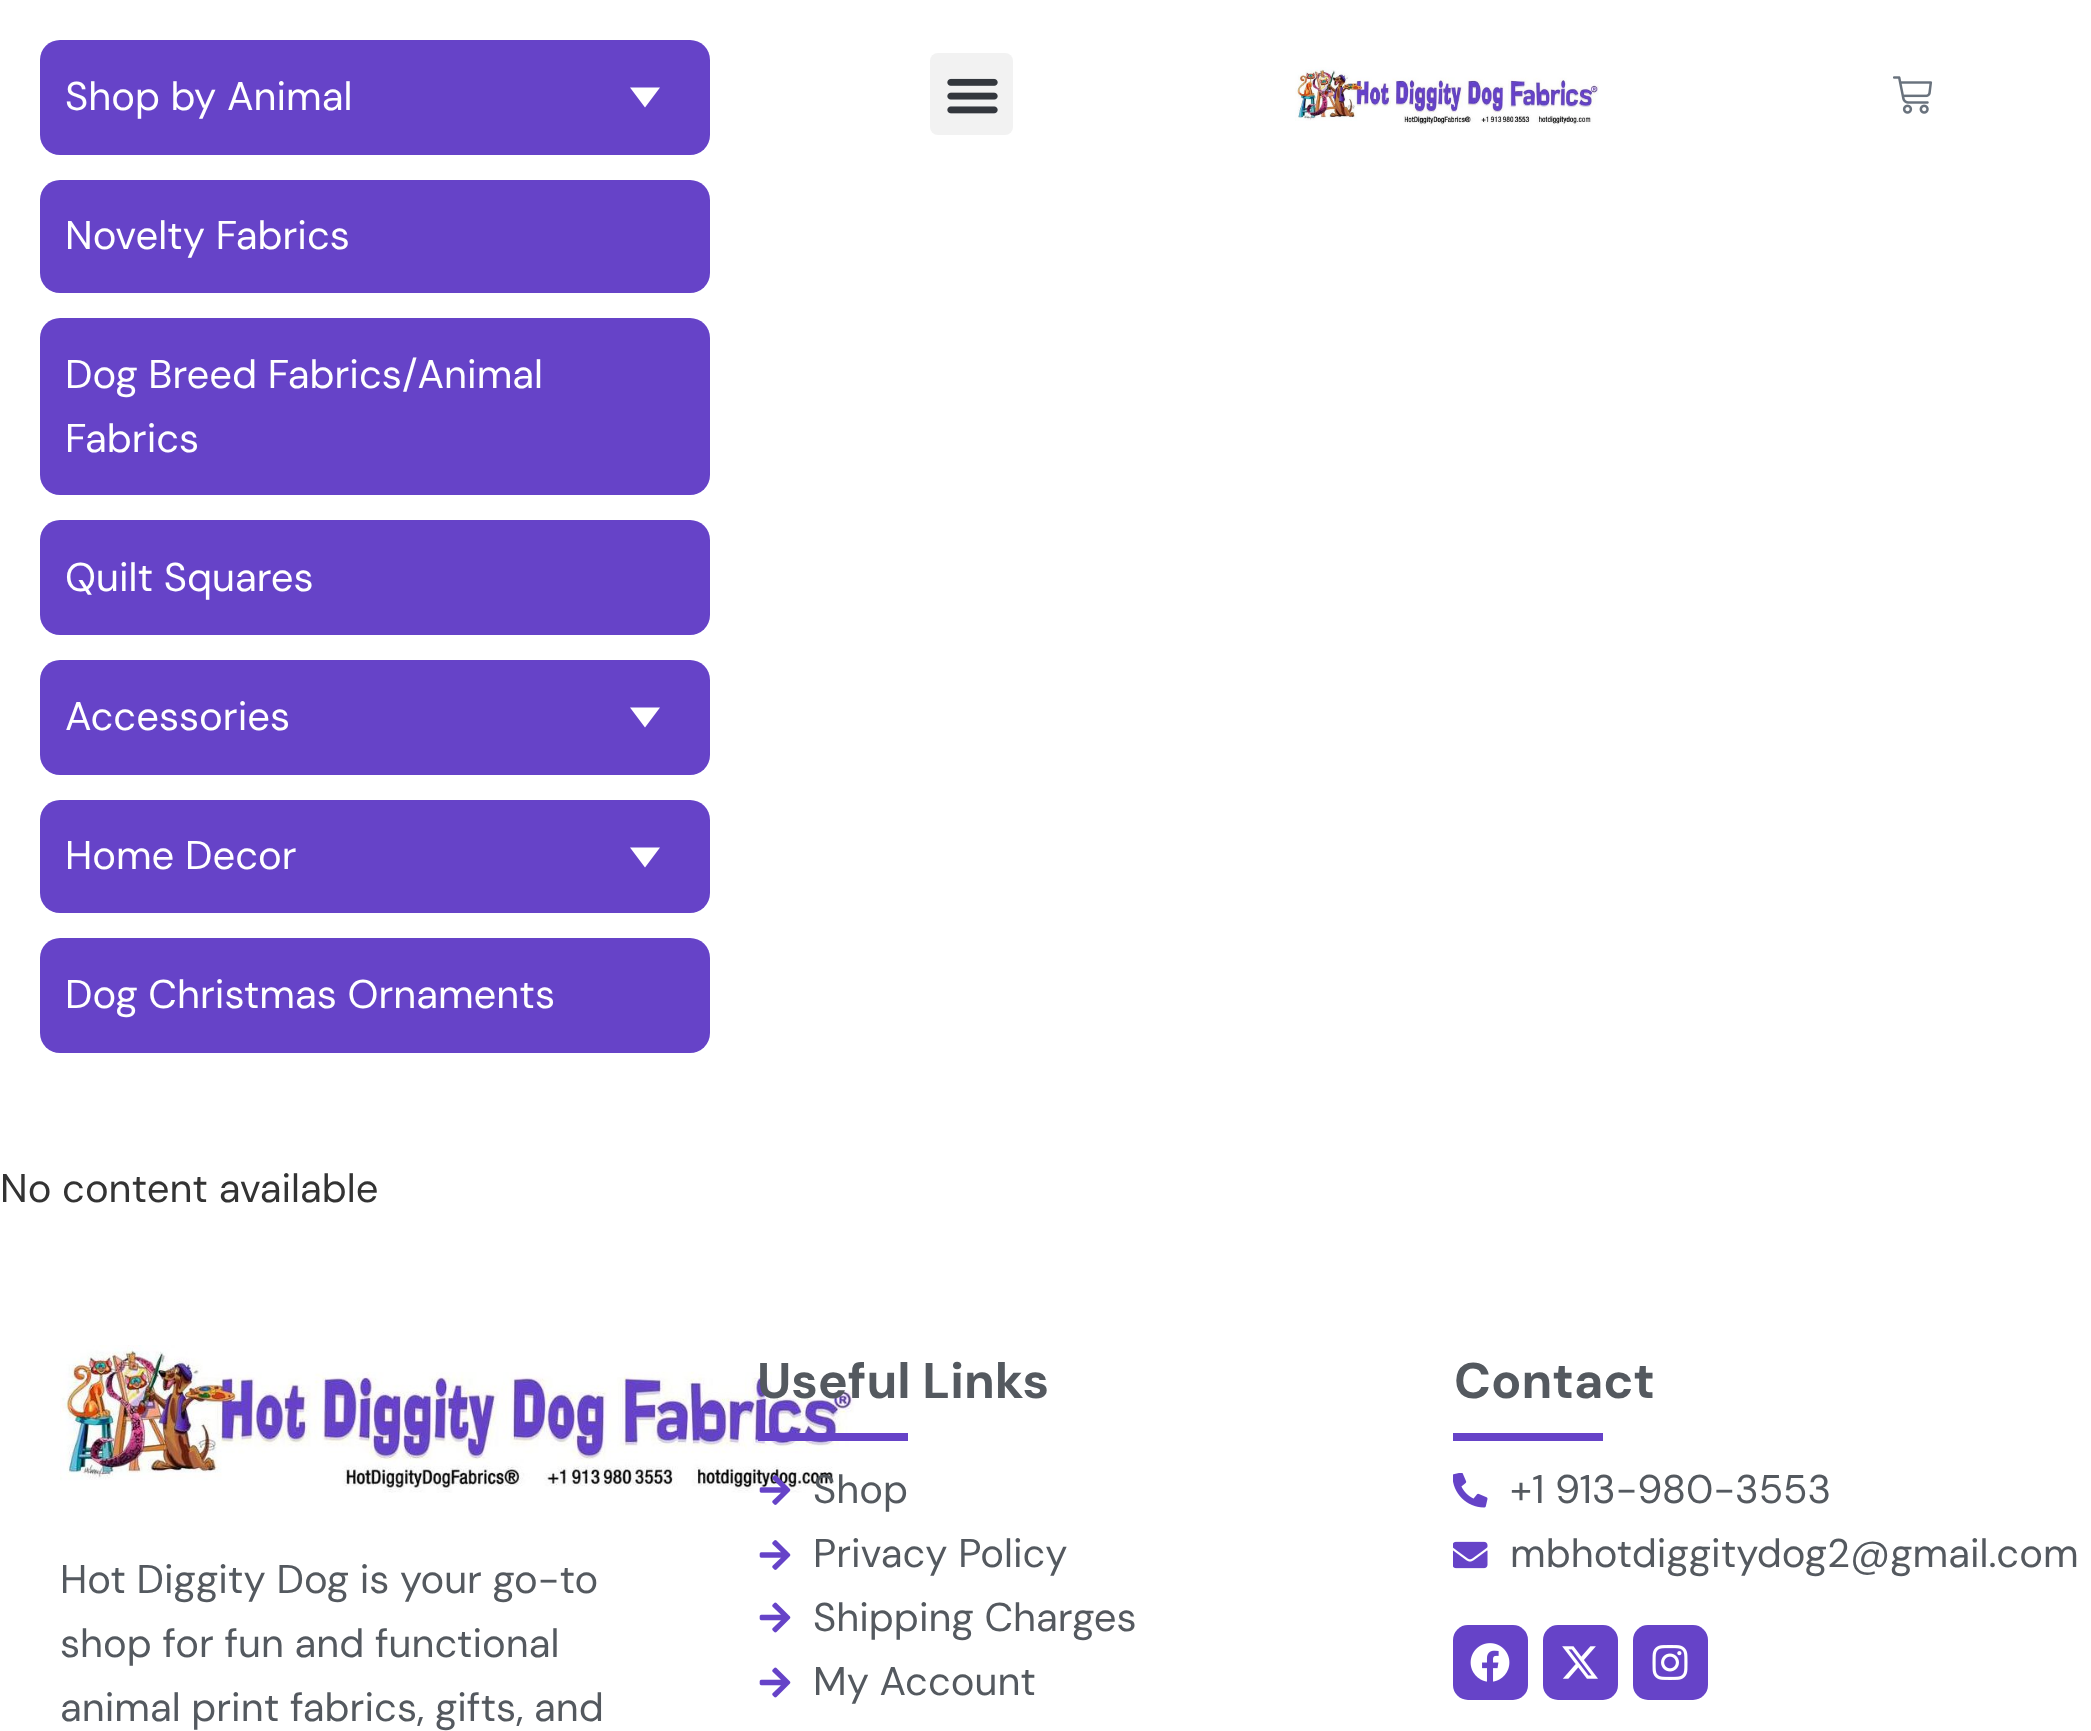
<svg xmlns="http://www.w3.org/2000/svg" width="2091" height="1731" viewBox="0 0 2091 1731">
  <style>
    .t1 { font: 40px DM Sans; fill: #fff; }
    .t2 { font: 40px DM Sans; fill: #333; }
    .t3 { font: bold 50px DM Sans; fill: #54595f; }
    .t4 { font: 40px DM Sans; fill: #54595f; }
  </style>
  <rect width="100%" height="100%" fill="#fff"/>
  <rect x="40" y="40" width="670" height="115" rx="20" fill="#6643c8"/>
  <text x="65" y="110" class="t1">Shop by Animal</text>
  <path d="M630 87.5H660L645 107.5Z" fill="#fff"/>
  <rect x="40" y="180" width="670" height="113" rx="20" fill="#6643c8"/>
  <text x="65" y="249" class="t1">Novelty Fabrics</text>
  <rect x="40" y="318" width="670" height="177" rx="20" fill="#6643c8"/>
  <text x="65" y="388" class="t1">Dog Breed Fabrics/Animal</text>
  <text x="65" y="452" class="t1">Fabrics</text>
  <rect x="40" y="520" width="670" height="115" rx="20" fill="#6643c8"/>
  <text x="65" y="591" class="t1">Quilt Squares</text>
  <rect x="40" y="660" width="670" height="115" rx="20" fill="#6643c8"/>
  <text x="65" y="730" class="t1">Accessories</text>
  <path d="M630 707.5H660L645 727.5Z" fill="#fff"/>
  <rect x="40" y="800" width="670" height="113" rx="20" fill="#6643c8"/>
  <text x="65" y="869" class="t1">Home Decor</text>
  <path d="M630 847.5H660L645 867.5Z" fill="#fff"/>
  <rect x="40" y="938" width="670" height="115" rx="20" fill="#6643c8"/>
  <text x="65" y="1008" class="t1">Dog Christmas Ornaments</text>
  <rect x="930" y="53" width="83" height="82" rx="8" fill="#f2f2f2"/>
  <image x="947" y="78" width="51" height="36" href="images/1.png"/>
  <image x="1295" y="67" width="304" height="59" href="images/2.png"/>
  <image x="1893" y="76" width="40" height="38" href="images/3.png"/>
  <text x="0" y="1202" class="t2">No content available</text>
  <image x="60" y="1345" width="796" height="148" href="images/12.png"/>
  <text x="757" y="1398" class="t3">Useful Links</text>
  <rect x="758" y="1433" width="150" height="8" fill="#6643c8"/>
  <image x="759" y="1475" width="32" height="30" href="images/4.png"/>
  <text x="813" y="1503" class="t4">Shop</text>
  <image x="759" y="1540" width="32" height="30" href="images/5.png"/>
  <text x="813" y="1567" class="t4">Privacy Policy</text>
  <image x="759" y="1602" width="32" height="31" href="images/6.png"/>
  <text x="813" y="1631" class="t4">Shipping Charges</text>
  <image x="759" y="1667" width="32" height="31" href="images/6.png"/>
  <text x="813" y="1695" class="t4">My Account</text>
  <text x="1454" y="1398" class="t3">Contact</text>
  <rect x="1453" y="1433" width="150" height="8" fill="#6643c8"/>
  <image x="1453" y="1473" width="35" height="35" href="images/7.png"/>
  <text x="1510" y="1503" class="t4">+1 913-980-3553</text>
  <image x="1453" y="1541" width="35" height="28" href="images/8.png"/>
  <text x="1510" y="1567" class="t4">mbhotdiggitydog2@gmail.com</text>
  <rect x="1453" y="1625" width="75" height="75" rx="15" fill="#6643c8"/>
  <image x="1470" y="1643" width="40" height="39" href="images/9.png"/>
  <rect x="1543" y="1625" width="75" height="75" rx="15" fill="#6643c8"/>
  <image x="1562" y="1646" width="36" height="33" href="images/10.png"/>
  <rect x="1633" y="1625" width="75" height="75" rx="15" fill="#6643c8"/>
  <image x="1652" y="1645" width="36" height="35" href="images/11.png"/>
  <text x="60" y="1593" class="t4">Hot Diggity Dog is your go-to</text>
  <text x="60" y="1657" class="t4">shop for fun and functional</text>
  <text x="60" y="1721" class="t4">animal print fabrics, gifts, and</text>
</svg>
